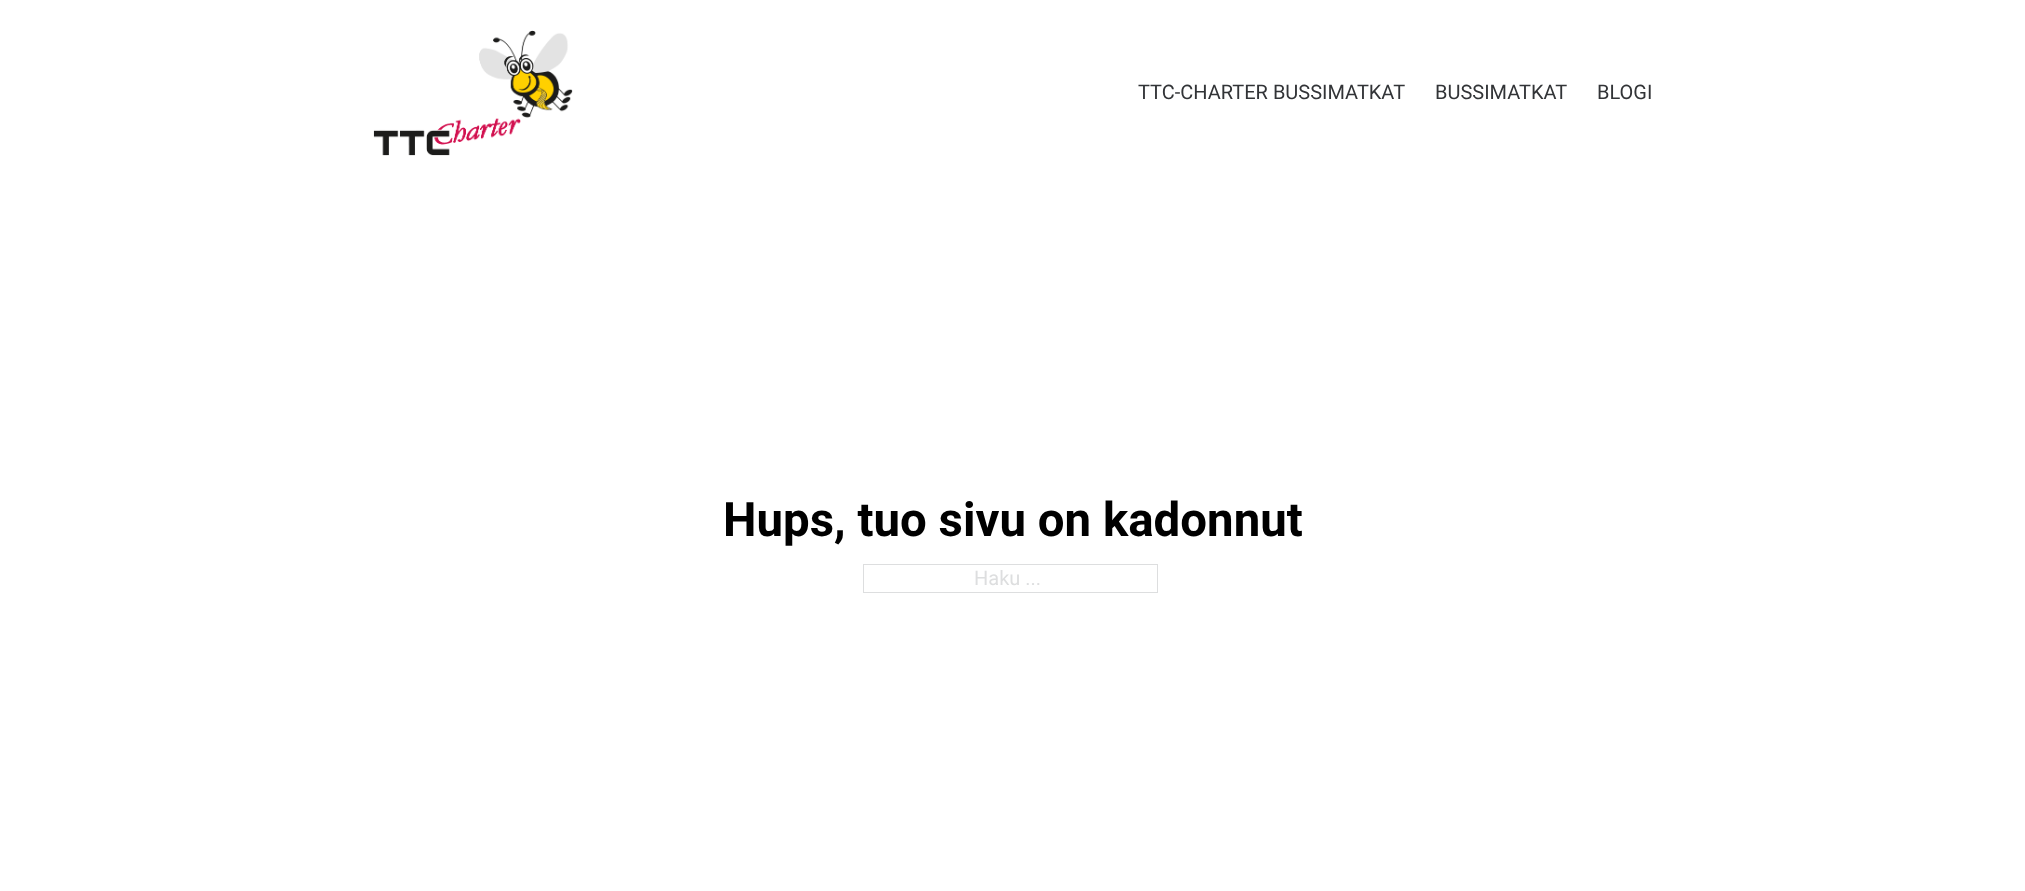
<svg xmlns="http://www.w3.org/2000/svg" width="2025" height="891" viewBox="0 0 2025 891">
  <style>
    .t1 { font: 20px Roboto; fill: #323437; }
    .t2 { font: bold 47.4px Roboto; fill: #000; }
    .t3 { font: 20px Roboto; fill: #dddedf; }
  </style>
  <rect width="100%" height="100%" fill="#fff"/>
  <image x="373" y="30" width="200" height="126" href="images/1.png"/>
  <text x="1138" y="99" class="t1">TTC-CHARTER BUSSIMATKAT</text>
  <text x="1435" y="99" class="t1">BUSSIMATKAT</text>
  <text x="1597" y="99" class="t1">BLOGI</text>
  <text x="723" y="536" class="t2">Hups, tuo sivu on kadonnut</text>
  <rect x="863.5" y="564.5" width="294" height="28" fill="none" stroke="#dddedf"/>
  <text x="974" y="585" class="t3">Haku ...</text>
</svg>
